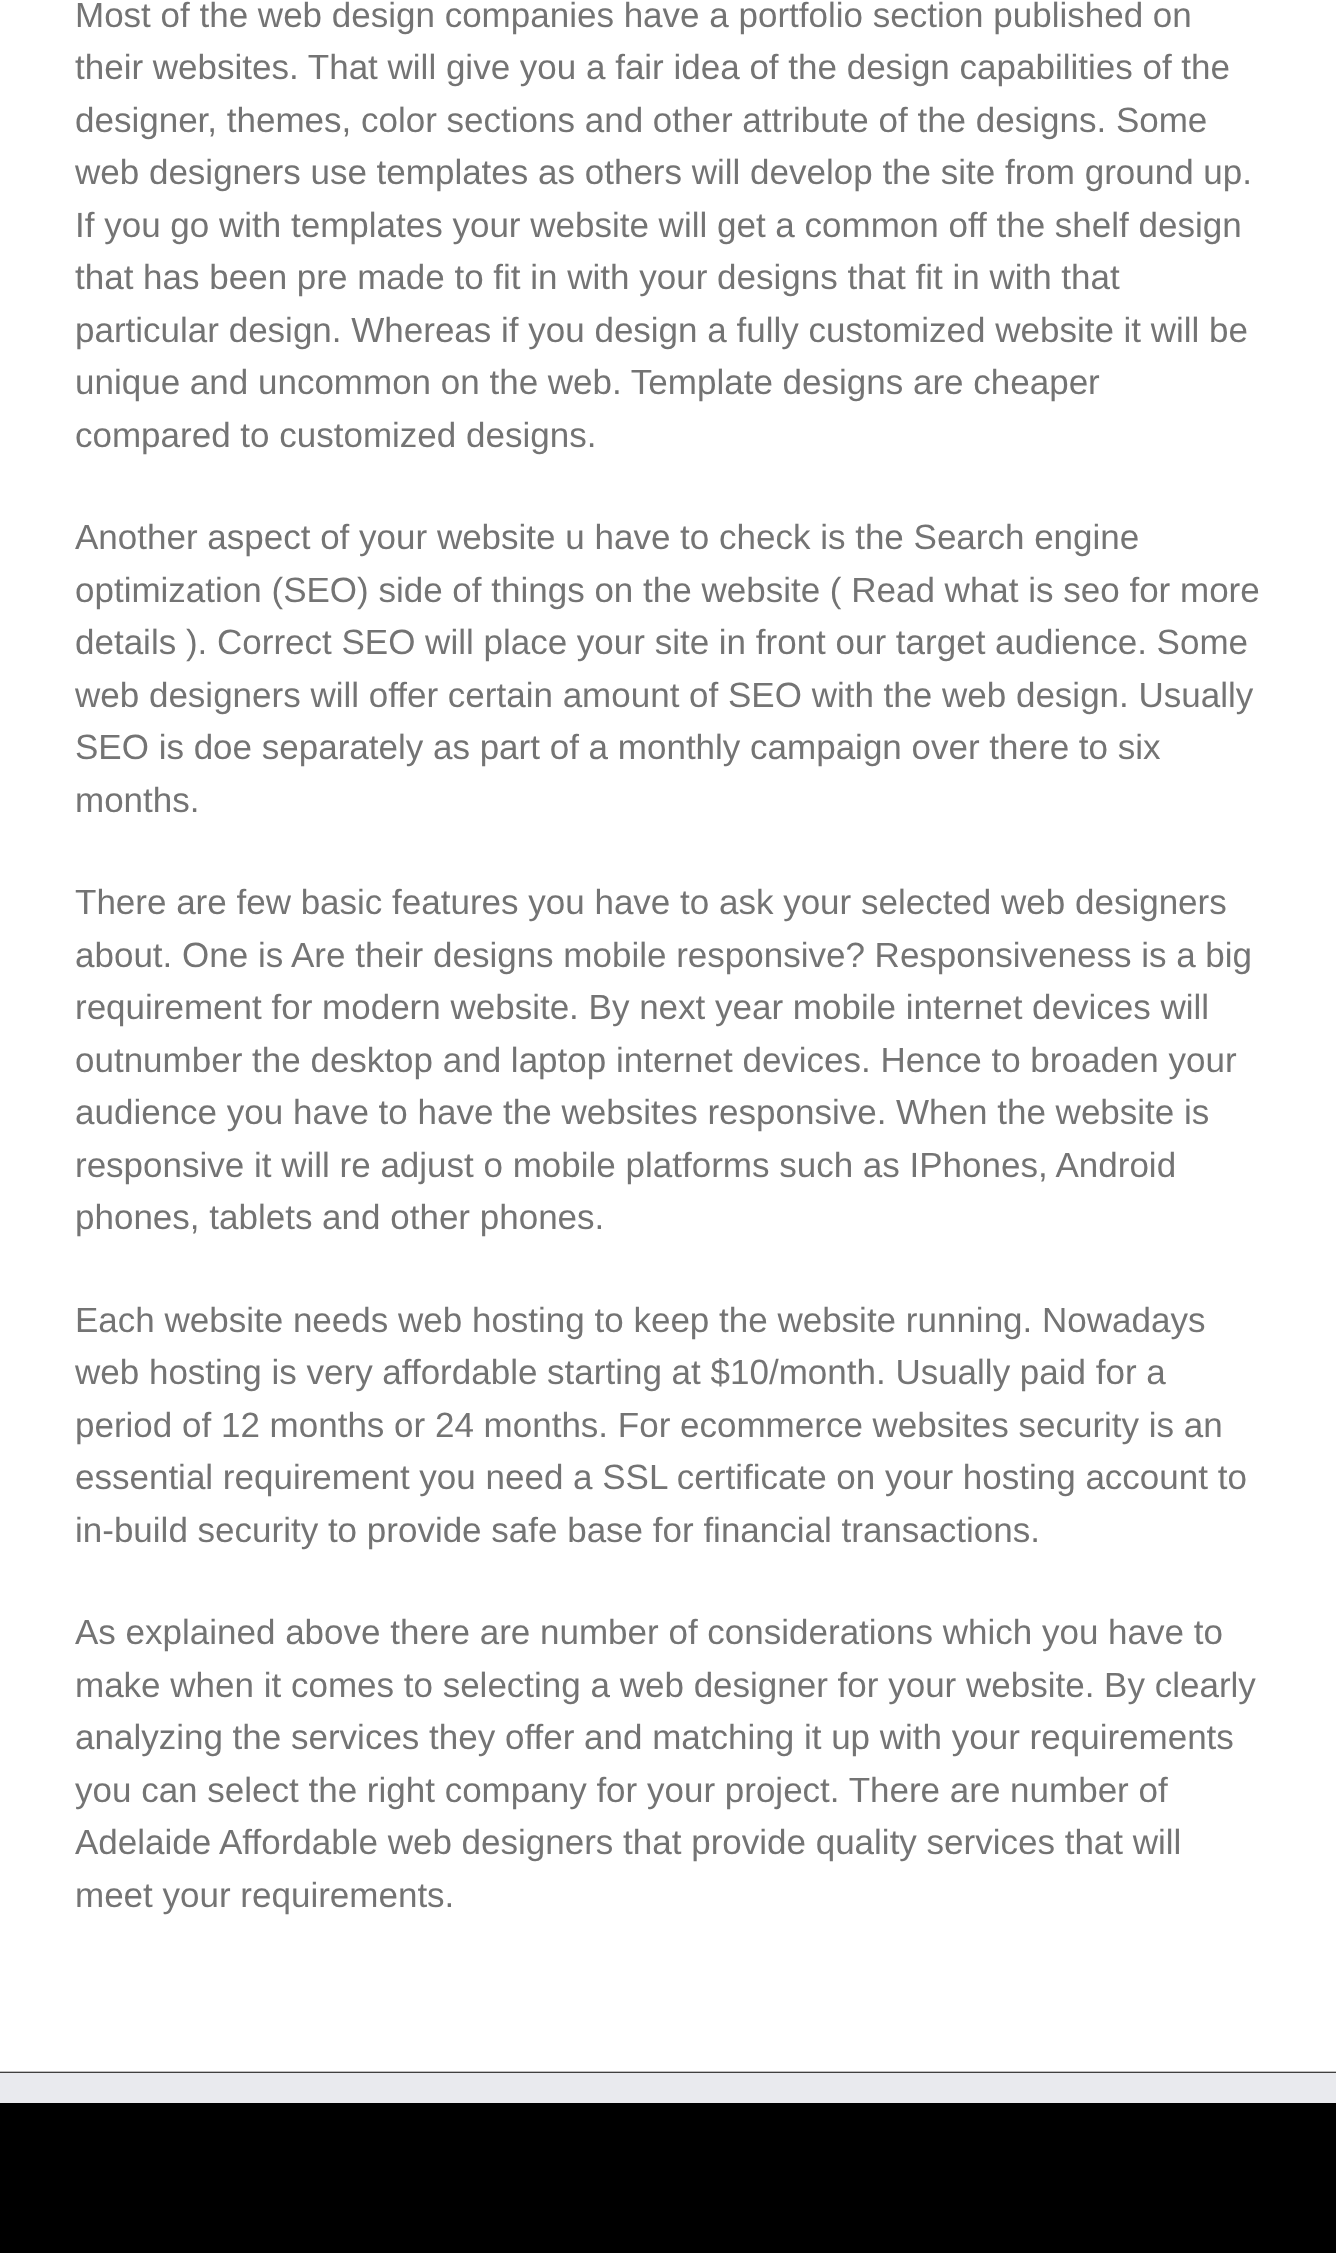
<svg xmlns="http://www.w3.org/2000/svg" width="1336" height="2253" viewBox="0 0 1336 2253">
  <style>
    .t1 { font: 35px Liberation Sans; fill: #747474; }
  </style>
  <rect width="100%" height="100%" fill="#fff"/>
  <text x="75" y="27" class="t1">Most of the web design companies have a portfolio section published on</text>
  <text x="75" y="79" class="t1">their websites. That will give you a fair idea of the design capabilities of the</text>
  <text x="75" y="132" class="t1">designer, themes, color sections and other attribute of the designs. Some</text>
  <text x="75" y="184" class="t1">web designers use templates as others will develop the site from ground up.</text>
  <text x="75" y="237" class="t1">If you go with templates your website will get a common off the shelf design</text>
  <text x="75" y="289" class="t1">that has been pre made to fit in with your designs that fit in with that</text>
  <text x="75" y="342" class="t1">particular design. Whereas if you design a fully customized website it will be</text>
  <text x="75" y="394" class="t1">unique and uncommon on the web. Template designs are cheaper</text>
  <text x="75" y="447" class="t1">compared to customized designs.</text>
  <text x="75" y="549" class="t1">Another aspect of your website u have to check is the Search engine</text>
  <text x="75" y="602" class="t1">optimization (SEO) side of things on the website ( Read what is seo for more</text>
  <text x="75" y="654" class="t1">details ). Correct SEO will place your site in front our target audience. Some</text>
  <text x="75" y="707" class="t1">web designers will offer certain amount of SEO with the web design. Usually</text>
  <text x="75" y="759" class="t1">SEO is doe separately as part of a monthly campaign over there to six</text>
  <text x="75" y="812" class="t1">months.</text>
  <text x="75" y="914" class="t1">There are few basic features you have to ask your selected web designers</text>
  <text x="75" y="967" class="t1">about. One is Are their designs mobile responsive? Responsiveness is a big</text>
  <text x="75" y="1019" class="t1">requirement for modern website. By next year mobile internet devices will</text>
  <text x="75" y="1072" class="t1">outnumber the desktop and laptop internet devices. Hence to broaden your</text>
  <text x="75" y="1124" class="t1">audience you have to have the websites responsive. When the website is</text>
  <text x="75" y="1177" class="t1">responsive it will re adjust o mobile platforms such as IPhones, Android</text>
  <text x="75" y="1229" class="t1">phones, tablets and other phones.</text>
  <text x="75" y="1332" class="t1">Each website needs web hosting to keep the website running. Nowadays</text>
  <text x="75" y="1384" class="t1">web hosting is very affordable starting at $10/month. Usually paid for a</text>
  <text x="75" y="1437" class="t1">period of 12 months or 24 months. For ecommerce websites security is an</text>
  <text x="75" y="1489" class="t1">essential requirement you need a SSL certificate on your hosting account to</text>
  <text x="75" y="1542" class="t1">in-build security to provide safe base for financial transactions.</text>
  <text x="75" y="1644" class="t1">As explained above there are number of considerations which you have to</text>
  <text x="75" y="1697" class="t1">make when it comes to selecting a web designer for your website. By clearly</text>
  <text x="75" y="1749" class="t1">analyzing the services they offer and matching it up with your requirements</text>
  <text x="75" y="1802" class="t1">you can select the right company for your project. There are number of</text>
  <text x="75" y="1854" class="t1">Adelaide Affordable web designers that provide quality services that will</text>
  <text x="75" y="1907" class="t1">meet your requirements.</text>
  <image x="0" y="2071" width="1336" height="182" href="images/1.png"/>
  <rect x="0" y="2073" width="1336" height="30" fill="#e9eaee"/>
</svg>
